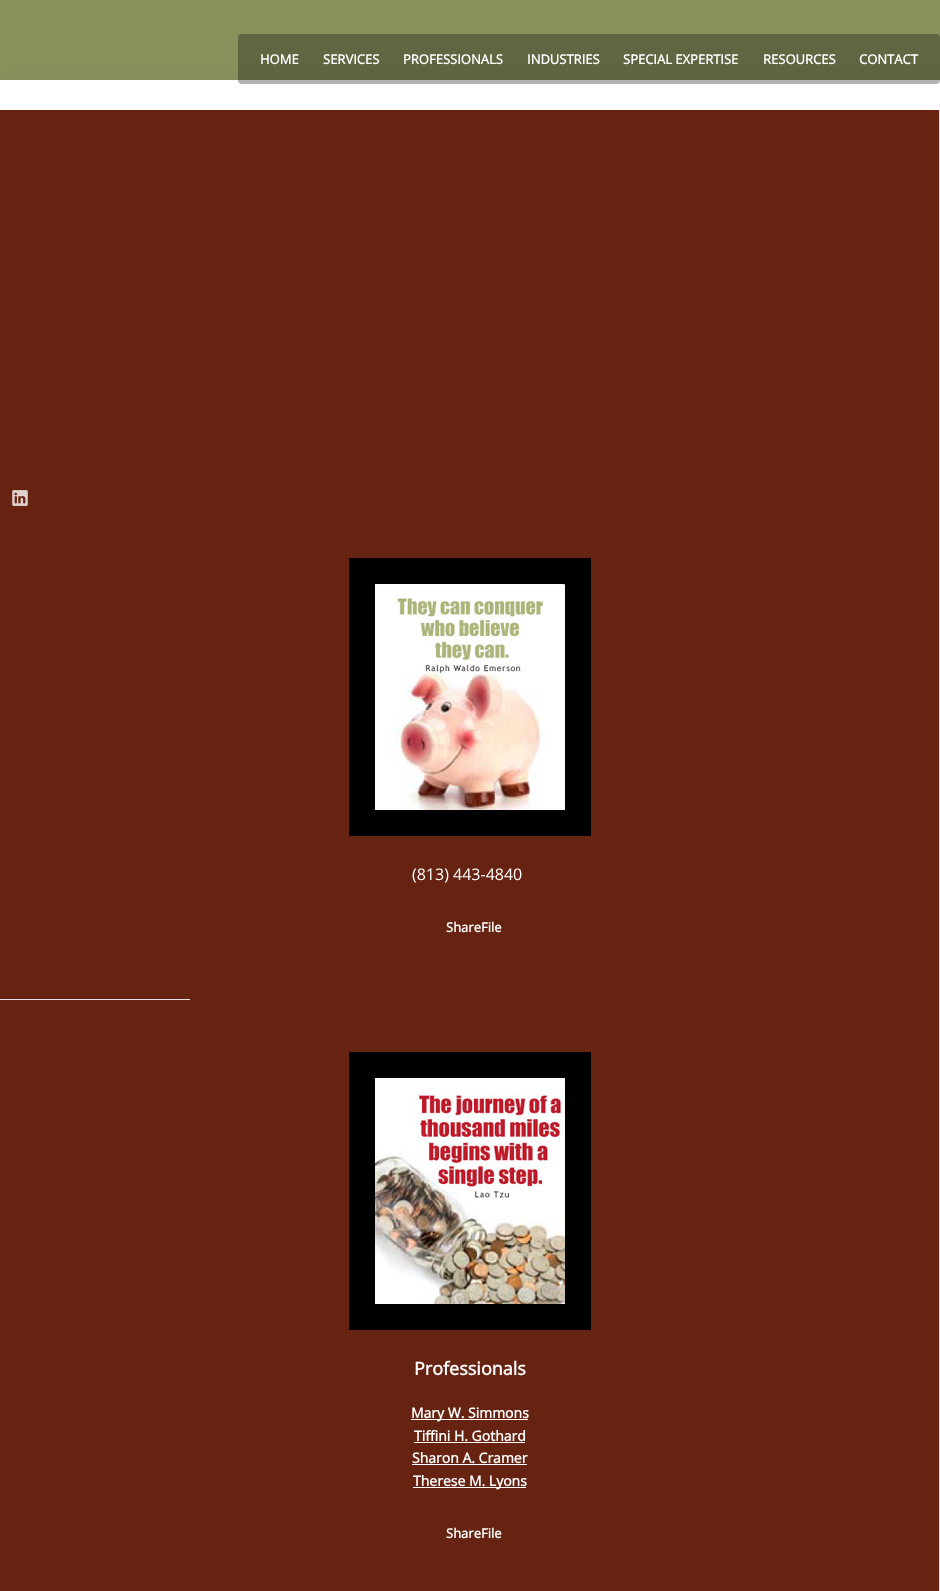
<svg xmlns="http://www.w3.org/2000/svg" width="940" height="1591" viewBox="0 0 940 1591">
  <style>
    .t1 { font: bold 13px Open Sans; fill: #fff; }
    .t2 { font: 16px Open Sans; fill: #fff; }
    .t3 { font: bold 18px Open Sans; fill: #fff; }
    .t4 { font: bold 14px Open Sans; fill: #fff; }
  </style>
  <rect width="100%" height="100%" fill="#8b915d"/>
  <rect x="0" y="90" width="940" height="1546" fill="#0000001a" filter="blur(15px)"/>
  <rect x="0" y="110" width="939" height="1481" fill="#662311"/>
  <image x="12" y="490" width="16" height="16" href="images/1.png"/>
  <rect x="0" y="80" width="940" height="30" fill="#fff"/>
  <rect x="238" y="34" width="702" height="50" rx="4" fill="#0000004d"/>
  <text x="260" y="64" class="t1">HOME</text>
  <text x="323" y="64" class="t1">SERVICES</text>
  <text x="403" y="64" class="t1">PROFESSIONALS</text>
  <text x="527" y="64" class="t1">INDUSTRIES</text>
  <text x="623" y="64" class="t1">SPECIAL EXPERTISE</text>
  <text x="763" y="64" class="t1">RESOURCES</text>
  <text x="859" y="64" class="t1">CONTACT</text>
  <rect x="939" y="110" width="1" height="1481" fill="#e1e1e1"/>
  <rect x="362" y="571" width="216" height="252" fill="none" stroke="#000" stroke-width="26"/>
  <image x="375" y="584" width="190" height="226" href="images/2.png"/>
  <text x="412" y="880" class="t2">(813) 443-4840</text>
  <text x="446" y="932" class="t1">ShareFile</text>
  <rect x="0" y="999" width="190" height="1" fill="#e1e1e1"/>
  <rect x="362" y="1065" width="216" height="252" fill="none" stroke="#000" stroke-width="26"/>
  <image x="375" y="1078" width="190" height="226" href="images/3.png"/>
  <text x="414" y="1375" class="t3">Professionals</text>
  <rect x="411" y="1419" width="117" height="1" fill="#fff"/>
  <text x="411" y="1418" class="t4">Mary W. Simmons</text>
  <text x="414" y="1441" class="t4">Tiffini H. Gothard</text>
  <rect x="414" y="1442" width="111" height="1" fill="#fff"/>
  <text x="412" y="1463" class="t4">Sharon A. Cramer</text>
  <rect x="412" y="1464" width="115" height="1" fill="#fff"/>
  <rect x="413" y="1487" width="113" height="1" fill="#fff"/>
  <text x="413" y="1486" class="t4">Therese M. Lyons</text>
  <text x="446" y="1538" class="t1">ShareFile</text>
</svg>
